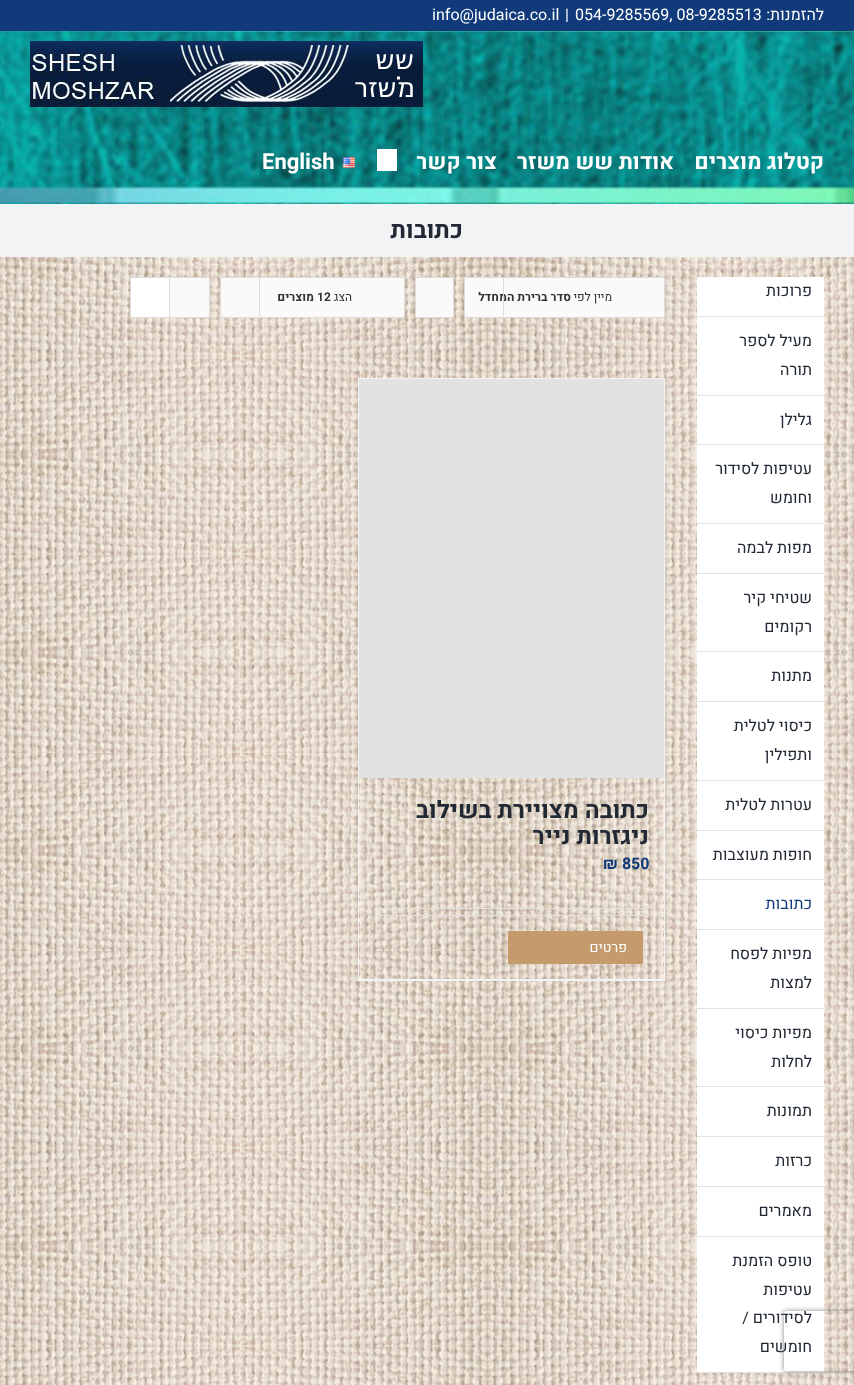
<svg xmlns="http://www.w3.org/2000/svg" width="854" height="1385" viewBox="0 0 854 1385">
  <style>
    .t1 { font: 16px Heebo; direction: rtl; fill: #fff; }
    .t2 { font: 16px Heebo; fill: #fff; }
    .t3 { font: bold 22px Heebo; direction: rtl; fill: #fff; }
    .t4 { font: bold 22px Heebo; fill: #fff; }
    .t5 { font: bold 24px Heebo; direction: rtl; fill: #212934; }
    .t6 { font: 16px Heebo; direction: rtl; fill: #212934; }
    .t7 { font: 16px Heebo; direction: rtl; fill: #113a7a; }
    .t8 { font: bold 12px Heebo; direction: rtl; fill: #333; }
    .t9 { font: 12px Heebo; direction: rtl; fill: #333; }
    .t10 { font: bold 12px Heebo; fill: #333; }
    .t11 { font: bold 16px Heebo; fill: #113a7a; }
    .t12 { font: 14px Heebo; direction: rtl; fill: #fff; }
  </style>
  <defs>
    <clipPath id="clip1"><path d="M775 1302H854V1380H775ZM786 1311H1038C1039 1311 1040 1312 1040 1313V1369C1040 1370 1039 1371 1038 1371H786C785 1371 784 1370 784 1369V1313C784 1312 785 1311 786 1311Z" clip-rule="evenodd"/></clipPath>
  </defs>
  <rect width="100%" height="100%" fill="#f2f3f5"/>
  <rect x="0" y="0" width="854" height="31" fill="#113a7a"/>
  <text x="824" y="20" class="t1">להזמנות:</text>
  <text x="575" y="20" class="t2">054-9285569, 08-9285513</text>
  <text x="565" y="20" class="t2">|</text>
  <text x="432" y="20" class="t2">info@judaica.co.il</text>
  <image x="0" y="31" width="854" height="173" href="images/1.png"/>
  <image x="30" y="41" width="393" height="66" href="images/2.png"/>
  <text x="824" y="169" class="t3">קטלוג מוצרים</text>
  <text x="674" y="169" class="t3">אודות שש משזר</text>
  <text x="497" y="169" class="t3">צור קשר</text>
  <rect x="377" y="149" width="20" height="22" fill="#fff"/>
  <image x="342" y="157" width="14" height="12" href="images/3.png"/>
  <text x="262" y="169" class="t4">English</text>
  <text x="463" y="238" class="t5">כתובות</text>
  <image x="0" y="257" width="854" height="1128" href="images/4.png"/>
  <rect x="697" y="277" width="127" height="1095" fill="#fff"/>
  <rect x="697" y="316" width="127" height="1" fill="#e2e2e2"/>
  <text x="812" y="296" class="t6">פרוכות</text>
  <rect x="697" y="395" width="127" height="1" fill="#e2e2e2"/>
  <text x="812" y="346" class="t6">מעיל לספר</text>
  <text x="812" y="375" class="t6">תורה</text>
  <rect x="697" y="444" width="127" height="1" fill="#e2e2e2"/>
  <text x="812" y="425" class="t6">גלילן</text>
  <rect x="697" y="523" width="127" height="1" fill="#e2e2e2"/>
  <text x="812" y="474" class="t6">עטיפות לסידור</text>
  <text x="812" y="503" class="t6">וחומש</text>
  <rect x="697" y="573" width="127" height="1" fill="#e2e2e2"/>
  <text x="812" y="553" class="t6">מפות לבמה</text>
  <rect x="697" y="651" width="127" height="1" fill="#e2e2e2"/>
  <text x="812" y="603" class="t6">שטיחי קיר</text>
  <text x="812" y="632" class="t6">רקומים</text>
  <rect x="697" y="701" width="127" height="1" fill="#e2e2e2"/>
  <text x="812" y="681" class="t6">מתנות</text>
  <rect x="697" y="780" width="127" height="1" fill="#e2e2e2"/>
  <text x="812" y="731" class="t6">כיסוי לטלית</text>
  <text x="812" y="760" class="t6">ותפילין</text>
  <rect x="697" y="830" width="127" height="1" fill="#e2e2e2"/>
  <text x="812" y="810" class="t6">עטרות לטלית</text>
  <rect x="697" y="879" width="127" height="1" fill="#e2e2e2"/>
  <text x="812" y="860" class="t6">חופות מעוצבות</text>
  <rect x="697" y="929" width="127" height="1" fill="#e2e2e2"/>
  <text x="812" y="909" class="t7">כתובות</text>
  <rect x="697" y="1008" width="127" height="1" fill="#e2e2e2"/>
  <text x="812" y="959" class="t6">מפיות לפסח</text>
  <text x="812" y="988" class="t6">למצות</text>
  <rect x="697" y="1086" width="127" height="1" fill="#e2e2e2"/>
  <text x="812" y="1038" class="t6">מפיות כיסוי</text>
  <text x="812" y="1067" class="t6">לחלות</text>
  <rect x="697" y="1136" width="127" height="1" fill="#e2e2e2"/>
  <text x="812" y="1116" class="t6">תמונות</text>
  <rect x="697" y="1186" width="127" height="1" fill="#e2e2e2"/>
  <text x="812" y="1166" class="t6">כרזות</text>
  <rect x="697" y="1236" width="127" height="1" fill="#e2e2e2"/>
  <text x="812" y="1216" class="t6">מאמרים</text>
  <rect x="697" y="1372" width="127" height="1" fill="#e2e2e2"/>
  <text x="812" y="1266" class="t6">טופס הזמנת</text>
  <text x="812" y="1295" class="t6">עטיפות</text>
  <text x="812" y="1323" class="t6">לסידורים /</text>
  <text x="812" y="1352" class="t6">חומשים</text>
  <rect x="464.5" y="277.5" width="200" height="40" fill="#fbfaf9" stroke="#dbdbdb"/>
  <text x="571" y="301" class="t8">סדר ברירת המחדל</text>
  <rect x="503" y="277" width="1" height="39" fill="#dbdbdb"/>
  <text x="612" y="301" class="t9">מיין לפי</text>
  <rect x="415.5" y="277.5" width="38" height="40" fill="#fbfaf9" stroke="#dbdbdb"/>
  <rect x="220.5" y="277.5" width="184" height="40" fill="#fbfaf9" stroke="#dbdbdb"/>
  <text x="352" y="301" class="t9">הצג</text>
  <text x="317" y="301" class="t10">12</text>
  <text x="314" y="301" class="t8">מוצרים</text>
  <rect x="259" y="277" width="1" height="39" fill="#dbdbdb"/>
  <rect x="130.5" y="277.5" width="79" height="40" fill="none" stroke="#dbdbdb"/>
  <rect x="170" y="278" width="39" height="39" fill="#fbfaf9"/>
  <rect x="131" y="278" width="38" height="39" fill="#fff"/>
  <rect x="169" y="278" width="1" height="39" fill="#dbdbdb"/>
  <rect x="358" y="378" width="307" height="1" fill="#f2f3f5"/>
  <rect x="664" y="378" width="1" height="603" fill="#f2f3f5"/>
  <rect x="358" y="979" width="307" height="2" fill="#f2f3f5"/>
  <rect x="358" y="378" width="1" height="603" fill="#f2f3f5"/>
  <rect x="359" y="379" width="305" height="399" fill="#e2e2e2"/>
  <text x="649" y="818" class="t5">כתובה מצויירת בשילוב</text>
  <text x="649" y="844" class="t5">ניגזרות נייר</text>
  <text x="603" y="869" class="t11">₪ 850</text>
  <rect x="374" y="908" width="275" height="1" fill="#e2e2e2"/>
  <rect x="374" y="915" width="275" height="1" fill="#e2e2e2"/>
  <rect x="508" y="931" width="135" height="33" fill="#c59a6d"/>
  <text x="627" y="952" class="t12">פרטים</text>
  <g clip-path="url(#clip1)">
    <rect x="784" y="1311" width="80" height="60" rx="2" fill="#808080" filter="blur(2.5px)"/>
  </g>
</svg>
